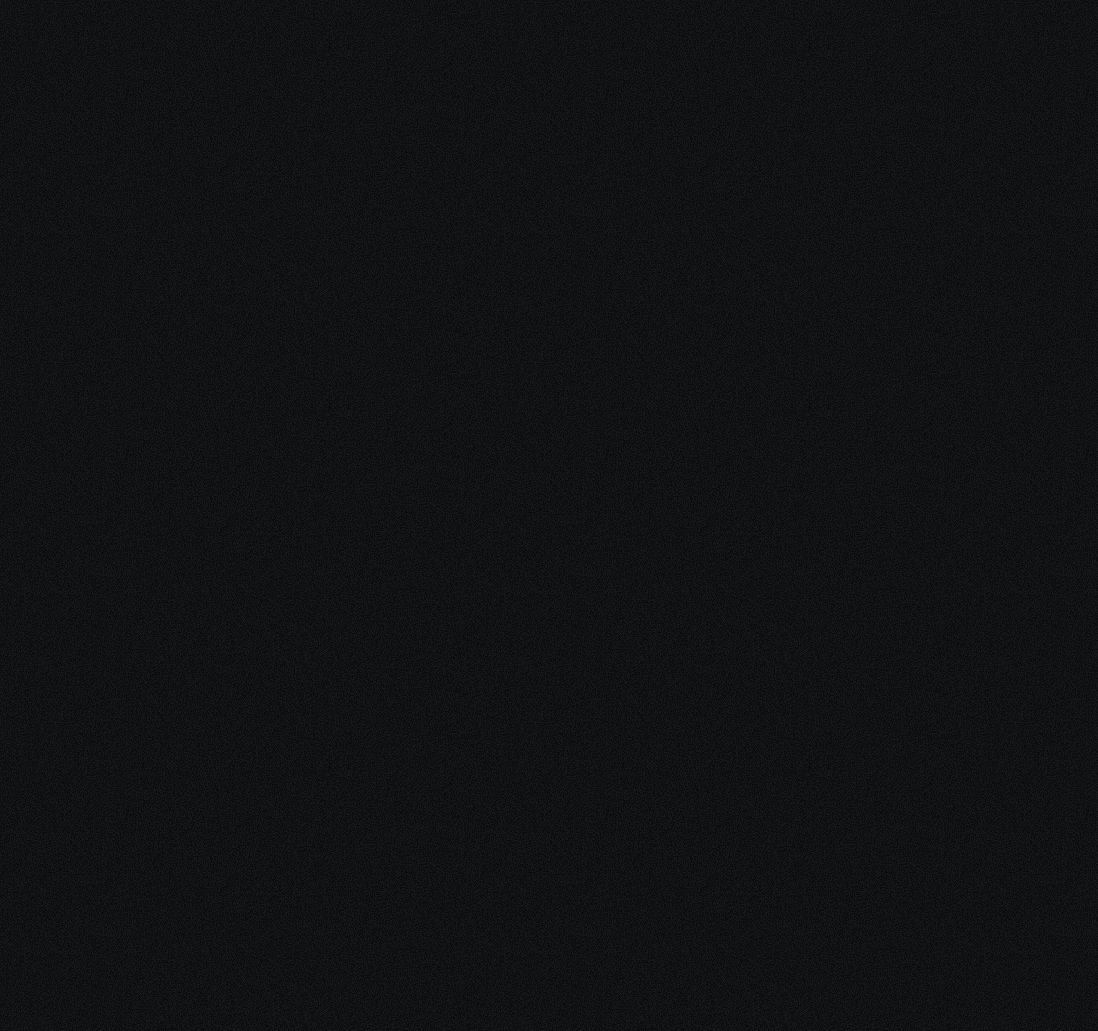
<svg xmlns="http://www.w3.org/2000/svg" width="1098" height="1031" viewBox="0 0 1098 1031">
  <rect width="100%" height="100%" fill="#0c0e0f"/>
  <image x="0" y="0" width="1098" height="1031" href="images/1.png"/>
</svg>
